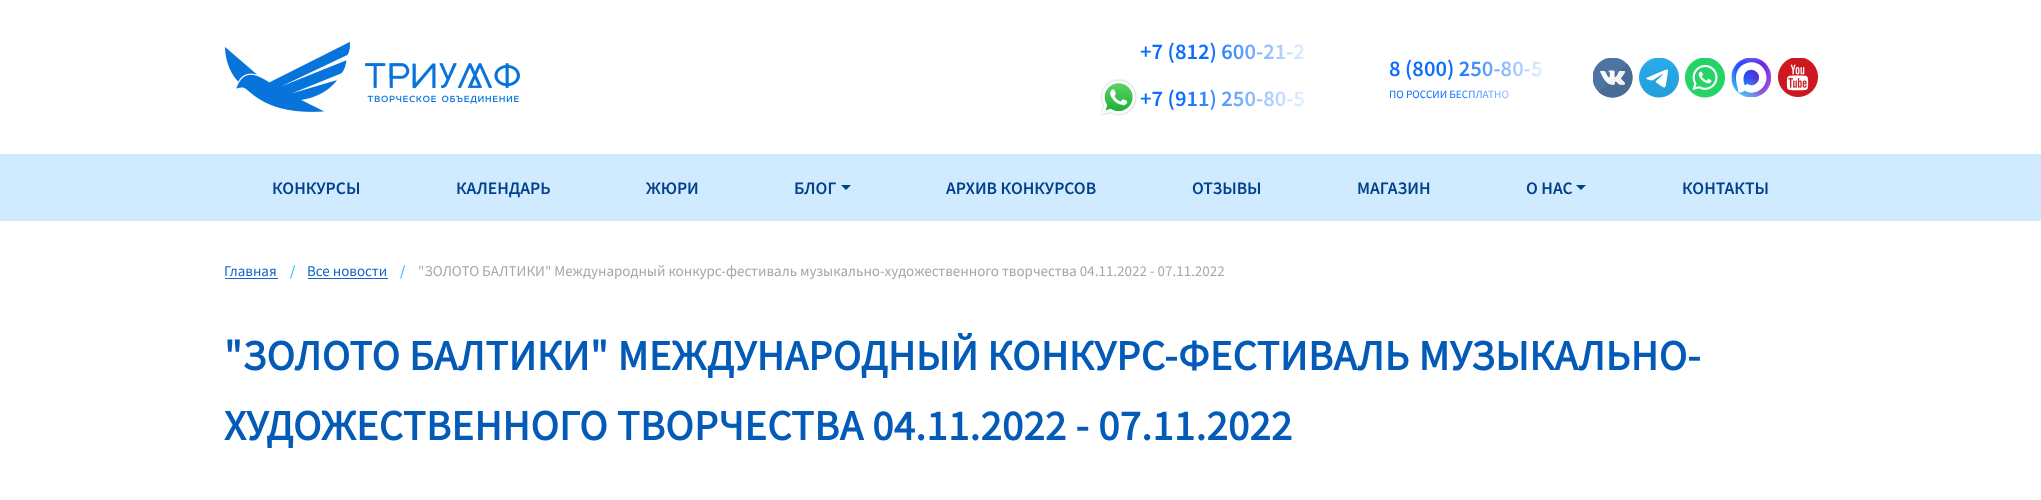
<svg xmlns="http://www.w3.org/2000/svg" width="2041" height="500" viewBox="0 0 2041 500">
  <style>
    .t1 { font: 600 22.5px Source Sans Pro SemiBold; fill: url(#g1); }
    .t2 { font: 600 22.5px Source Sans Pro SemiBold; fill: url(#g2); }
    .t3 { font: 600 22.5px Source Sans Pro SemiBold; fill: url(#g3); }
    .t4 { font: 11.25px Source Sans Pro; fill: url(#g3); }
    .t5 { font: 600 17.5px Source Sans Pro SemiBold; fill: #01408a; }
    .t6 { font: 15px Source Sans Pro; fill: #1466c7; }
    .t7 { font: 15px Source Sans Pro; fill: #00b7ff; }
    .t8 { font: 15px Source Sans Pro; fill: #a7a7a7; }
    .t9 { font: bold 42.5px Source Sans Pro; letter-spacing: 0.43px; fill: #035bb7; }
  </style>
  <defs>
    <linearGradient id="g1" gradientUnits="userSpaceOnUse" x1="1140" y1="51" x2="1317" y2="51"><stop offset="0" stop-color="#0d6efd"/><stop offset="0.38" stop-color="#0d6efd"/><stop offset="1" stop-color="#fff"/></linearGradient>
    <linearGradient id="g2" gradientUnits="userSpaceOnUse" x1="1099" y1="98" x2="1317" y2="98"><stop offset="0" stop-color="#0d6efd"/><stop offset="0.38" stop-color="#0d6efd"/><stop offset="1" stop-color="#fff"/></linearGradient>
    <linearGradient id="g3" gradientUnits="userSpaceOnUse" x1="1389" y1="77" x2="1554" y2="77"><stop offset="0" stop-color="#0d6efd"/><stop offset="0.38" stop-color="#0d6efd"/><stop offset="1" stop-color="#fff"/></linearGradient>
  </defs>
  <rect width="100%" height="100%" fill="#fff"/>
  <image x="225" y="42" width="295" height="70" href="images/1.png"/>
  <text x="1140" y="59" class="t1">+7 (812) 600-21-2</text>
  <image x="1100" y="79" width="37" height="37" href="images/2.png"/>
  <text x="1140" y="106" class="t2">+7 (911) 250-80-5</text>
  <text x="1389" y="76" class="t3">8 (800) 250-80-5</text>
  <text x="1389" y="98" class="t4">ПО РОССИИ БЕСПЛАТНО</text>
  <image x="1593" y="58" width="40" height="40" href="images/3.png"/>
  <image x="1639" y="58" width="40" height="40" href="images/4.png"/>
  <image x="1685" y="58" width="40" height="40" href="images/5.png"/>
  <image x="1731" y="58" width="40" height="40" href="images/6.png"/>
  <image x="1778" y="58" width="40" height="39" href="images/7.png"/>
  <rect x="0" y="154" width="2041" height="67" fill="#d0eaff"/>
  <text x="272" y="194" class="t5">КОНКУРСЫ</text>
  <text x="456" y="194" class="t5">КАЛЕНДАРЬ</text>
  <text x="646" y="194" class="t5">ЖЮРИ</text>
  <text x="794" y="194" class="t5">БЛОГ</text>
  <path d="M841 185H851L846 190Z" fill="#01408a"/>
  <text x="946" y="194" class="t5">АРХИВ КОНКУРСОВ</text>
  <text x="1192" y="194" class="t5">ОТЗЫВЫ</text>
  <text x="1357" y="194" class="t5">МАГАЗИН</text>
  <text x="1526" y="194" class="t5">О НАС</text>
  <path d="M1576 185H1586L1581 190Z" fill="#01408a"/>
  <text x="1682" y="194" class="t5">КОНТАКТЫ</text>
  <text x="224" y="276" class="t6">Главная</text>
  <rect x="225" y="278" width="53" height="1" fill="#1466c7"/>
  <text x="290" y="276" class="t7">/</text>
  <text x="307" y="276" class="t6">Все новости</text>
  <rect x="308" y="278" width="80" height="1" fill="#1466c7"/>
  <text x="400" y="276" class="t7">/</text>
  <text x="418" y="276" class="t8">"ЗОЛОТО БАЛТИКИ" Международный конкурс-фестиваль музыкально-художественного творчества 04.11.2022 - 07.11.2022</text>
  <text x="224" y="370" class="t9">"ЗОЛОТО БАЛТИКИ" МЕЖДУНАРОДНЫЙ КОНКУРС-ФЕСТИВАЛЬ МУЗЫКАЛЬНО-</text>
  <text x="224" y="440" class="t9">ХУДОЖЕСТВЕННОГО ТВОРЧЕСТВА 04.11.2022 - 07.11.2022</text>
</svg>
